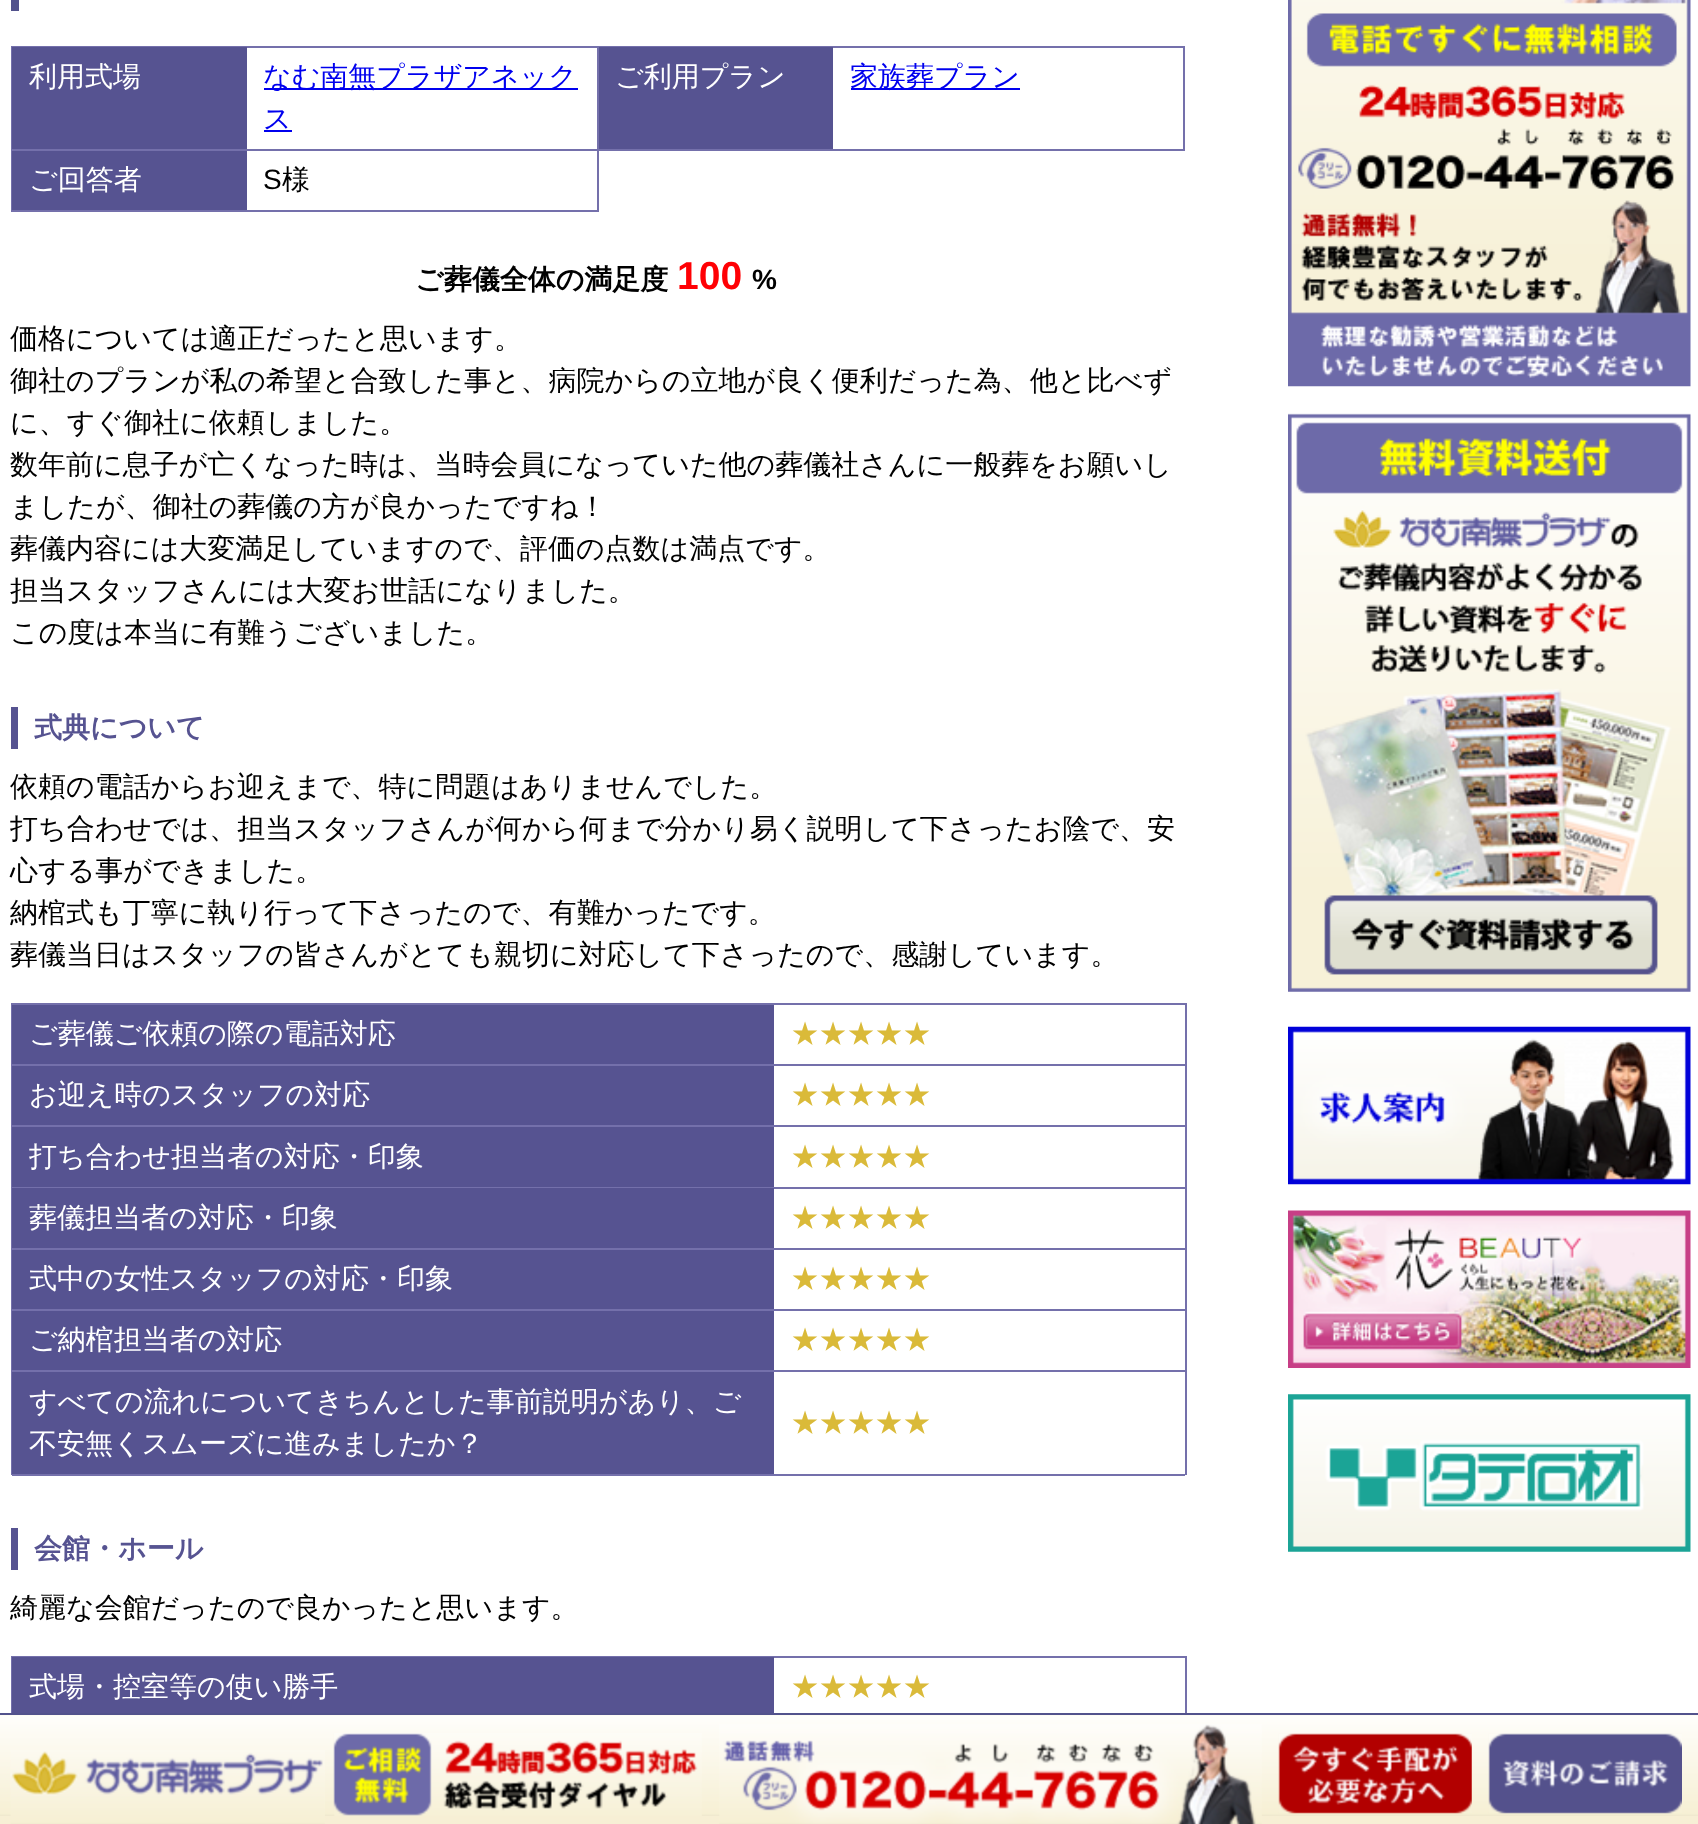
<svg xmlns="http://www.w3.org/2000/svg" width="1698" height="1824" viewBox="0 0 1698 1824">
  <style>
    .t1 { font: 500 28px WenQuanYi Zen Hei; fill: #fff; }
    .t2 { font: 500 28px WenQuanYi Zen Hei; fill: #00e; }
    .t3 { font: 28px Liberation Sans; fill: #000; }
    .t4 { font: 500 28px WenQuanYi Zen Hei; fill: #000; }
    .t5 { font: bold 28px WenQuanYi Zen Hei; fill: #000; }
    .t6 { font: bold 39px Liberation Sans; fill: #ff0004; }
    .t7 { font: bold 28px Liberation Sans; fill: #000; }
    .t8 { font: bold 28px WenQuanYi Zen Hei; fill: #565391; }
    .t9 { font: 500 28px WenQuanYi Zen Hei; fill: #daba39; }
  </style>
  <rect width="100%" height="100%" fill="#fff"/>
  <rect x="11" y="0" width="8" height="11" fill="#52528c"/>
  <rect x="11" y="46" width="1174" height="2" fill="#7470ab"/>
  <rect x="11" y="46" width="2" height="166" fill="#7470ab"/>
  <rect x="12" y="149" width="1173" height="2" fill="#7470ab"/>
  <rect x="12" y="47" width="235" height="102" fill="#565391"/>
  <text x="29" y="86" class="t1">利用式場</text>
  <rect x="597" y="47" width="2" height="102" fill="#7470ab"/>
  <rect x="264" y="88" width="314" height="2" fill="#00e"/>
  <text x="263" y="86" class="t2">なむ南無プラザアネック</text>
  <text x="263" y="128" class="t2">ス</text>
  <rect x="264" y="130" width="28" height="2" fill="#00e"/>
  <rect x="599" y="47" width="234" height="102" fill="#565391"/>
  <text x="615" y="86" class="t1">ご利用プラン</text>
  <rect x="1183" y="47" width="2" height="102" fill="#7470ab"/>
  <rect x="851" y="88" width="169" height="2" fill="#00e"/>
  <text x="850" y="86" class="t2">家族葬プラン</text>
  <rect x="12" y="210" width="587" height="2" fill="#7470ab"/>
  <rect x="12" y="151" width="235" height="59" fill="#565391"/>
  <text x="29" y="189" class="t1">ご回答者</text>
  <rect x="597" y="151" width="2" height="59" fill="#7470ab"/>
  <text x="263" y="189" class="t3">S</text>
  <text x="282" y="189" class="t4">様</text>
  <text x="415" y="289" class="t5">ご葬儀全体の満足度</text>
  <text x="677" y="289" class="t6">100</text>
  <text x="752" y="289" class="t7">%</text>
  <text x="10" y="348" class="t4">価格については適正だったと思います。</text>
  <text x="10" y="390" class="t4">御社のプランが私の希望と合致した事と、病院からの立地が良く便利だった為、他と比べず</text>
  <text x="10" y="432" class="t4">に、すぐ御社に依頼しました。</text>
  <text x="10" y="474" class="t4">数年前に息子が亡くなった時は、当時会員になっていた他の葬儀社さんに一般葬をお願いし</text>
  <text x="10" y="516" class="t4">ましたが、御社の葬儀の方が良かったですね！</text>
  <text x="10" y="558" class="t4">葬儀内容には大変満足していますので、評価の点数は満点です。</text>
  <text x="10" y="600" class="t4">担当スタッフさんには大変お世話になりました。</text>
  <text x="10" y="642" class="t4">この度は本当に有難うございました。</text>
  <rect x="11" y="707" width="7" height="42" fill="#565391"/>
  <text x="34" y="737" class="t8">式典について</text>
  <text x="10" y="796" class="t4">依頼の電話からお迎えまで、特に問題はありませんでした。</text>
  <text x="10" y="838" class="t4">打ち合わせでは、担当スタッフさんが何から何まで分かり易く説明して下さったお陰で、安</text>
  <text x="10" y="880" class="t4">心する事ができました。</text>
  <text x="10" y="922" class="t4">納棺式も丁寧に執り行って下さったので、有難かったです。</text>
  <text x="10" y="964" class="t4">葬儀当日はスタッフの皆さんがとても親切に対応して下さったので、感謝しています。</text>
  <rect x="11" y="1003" width="1176" height="2" fill="#7470ab"/>
  <rect x="1185" y="1003" width="2" height="472" fill="#7470ab"/>
  <rect x="11" y="1003" width="2" height="472" fill="#7470ab"/>
  <rect x="12" y="1064" width="1173" height="2" fill="#7470ab"/>
  <rect x="12" y="1005" width="762" height="59" fill="#565391"/>
  <text x="29" y="1043" class="t1">ご葬儀ご依頼の際の電話対応</text>
  <text x="791" y="1043" class="t9">★★★★★</text>
  <rect x="12" y="1125" width="1173" height="2" fill="#7470ab"/>
  <rect x="12" y="1066" width="762" height="59" fill="#565391"/>
  <text x="29" y="1104" class="t1">お迎え時のスタッフの対応</text>
  <text x="791" y="1104" class="t9">★★★★★</text>
  <rect x="12" y="1187" width="1173" height="2" fill="#7470ab"/>
  <rect x="12" y="1127" width="762" height="60" fill="#565391"/>
  <text x="29" y="1166" class="t1">打ち合わせ担当者の対応・印象</text>
  <text x="791" y="1166" class="t9">★★★★★</text>
  <rect x="12" y="1248" width="1173" height="2" fill="#7470ab"/>
  <rect x="12" y="1188" width="762" height="60" fill="#565391"/>
  <text x="29" y="1227" class="t1">葬儀担当者の対応・印象</text>
  <text x="791" y="1227" class="t9">★★★★★</text>
  <rect x="12" y="1309" width="1173" height="2" fill="#7470ab"/>
  <rect x="12" y="1250" width="762" height="59" fill="#565391"/>
  <text x="29" y="1288" class="t1">式中の女性スタッフの対応・印象</text>
  <text x="791" y="1288" class="t9">★★★★★</text>
  <rect x="12" y="1370" width="1173" height="2" fill="#7470ab"/>
  <rect x="12" y="1311" width="762" height="59" fill="#565391"/>
  <text x="29" y="1349" class="t1">ご納棺担当者の対応</text>
  <text x="791" y="1349" class="t9">★★★★★</text>
  <rect x="12" y="1474" width="1173" height="2" fill="#7470ab"/>
  <rect x="12" y="1372" width="762" height="102" fill="#565391"/>
  <text x="29" y="1411" class="t1">すべての流れについてきちんとした事前説明があり、ご</text>
  <text x="29" y="1453" class="t1">不安無くスムーズに進みましたか？</text>
  <text x="791" y="1432" class="t9">★★★★★</text>
  <rect x="11" y="1528" width="7" height="42" fill="#565391"/>
  <text x="34" y="1558" class="t8">会館・ホール</text>
  <text x="10" y="1617" class="t4">綺麗な会館だったので良かったと思います。</text>
  <rect x="11" y="1656" width="1176" height="2" fill="#7470ab"/>
  <rect x="1185" y="1656" width="2" height="57" fill="#7470ab"/>
  <rect x="11" y="1656" width="2" height="57" fill="#7470ab"/>
  <rect x="12" y="1657" width="762" height="56" fill="#565391"/>
  <text x="29" y="1696" class="t1">式場・控室等の使い勝手</text>
  <text x="791" y="1696" class="t9">★★★★★</text>
  <image x="1288" y="0" width="403" height="387" href="images/1.png"/>
  <image x="1288" y="413" width="403" height="579" href="images/2.png"/>
  <image x="1288" y="1026" width="403" height="159" href="images/3.png"/>
  <image x="1288" y="1210" width="403" height="158" href="images/4.png"/>
  <image x="1288" y="1394" width="403" height="158" href="images/5.png"/>
  <rect x="0" y="1715" width="1698" height="109" fill="#f7efd5"/>
  <image x="0" y="1715" width="1698" height="101" href="images/6.png"/>
  <rect x="0" y="1713" width="1698" height="2" fill="#52528c"/>
  <image x="10" y="1750" width="315" height="74" href="images/7.png"/>
  <image x="333" y="1733" width="369" height="83" href="images/8.png"/>
  <image x="719" y="1724" width="543" height="100" href="images/9.png"/>
  <image x="1278" y="1733" width="194" height="81" href="images/10.png"/>
  <image x="1488" y="1733" width="194" height="81" href="images/11.png"/>
</svg>
